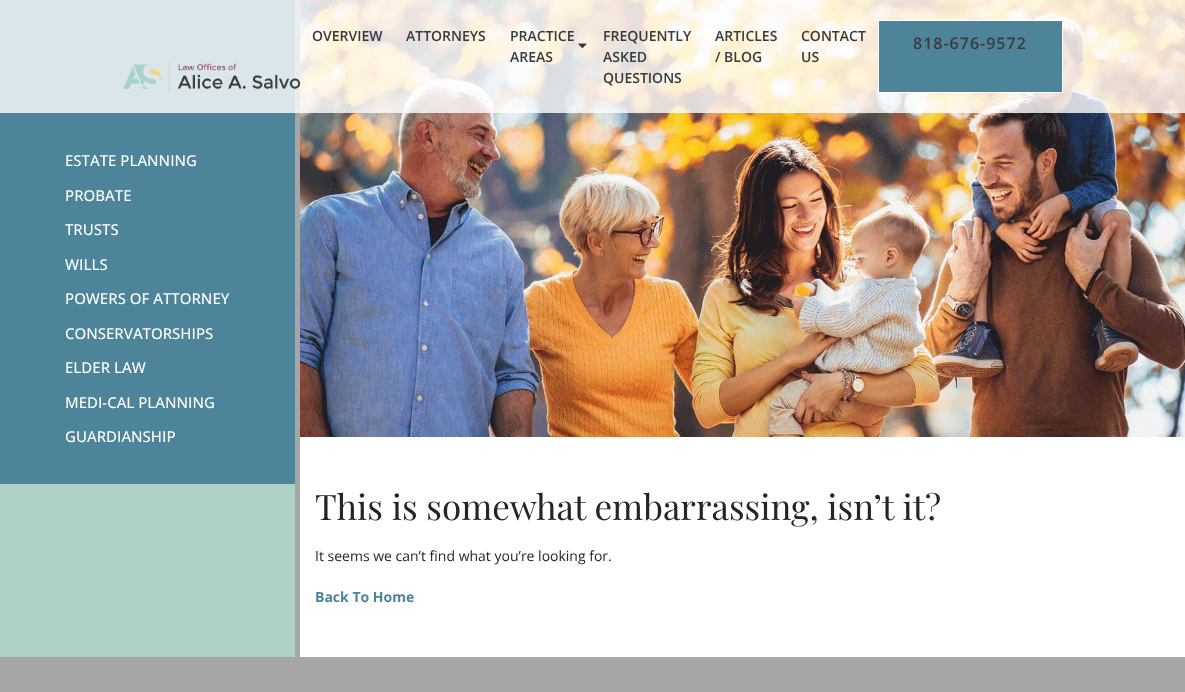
<svg xmlns="http://www.w3.org/2000/svg" width="1185" height="692" viewBox="0 0 1185 692">
  <style>
    .t1 { font: 600 14px Open Sans; fill: #3a3a3c; }
    .t2 { font: 600 16px Open Sans; letter-spacing: 1px; fill: #3a3a3c; }
    .t3 { font: 500 15px Open Sans; fill: #fff; }
    .t4 { font: 35px Playfair Display; fill: #252525; }
    .t5 { font: 14px Open Sans; fill: #252525; }
    .t6 { font: bold 14px Open Sans; fill: #4d8499; }
  </style>
  <rect width="100%" height="100%" fill="#fff"/>
  <rect x="295" y="0" width="5" height="657" fill="#a6a6a6"/>
  <rect x="0" y="0" width="295" height="484" fill="#4d8499"/>
  <image x="300" y="0" width="885" height="437" href="images/3.png"/>
  <rect x="0" y="0" width="1185" height="113" fill="#ffffffcc"/>
  <image x="123" y="61" width="177" height="32" href="images/1.png"/>
  <text x="312" y="41" class="t1">OVERVIEW</text>
  <text x="406" y="41" class="t1">ATTORNEYS</text>
  <text x="510" y="41" class="t1">PRACTICE</text>
  <image x="578" y="43" width="9" height="6" href="images/2.png"/>
  <text x="510" y="62" class="t1">AREAS</text>
  <text x="603" y="41" class="t1">FREQUENTLY</text>
  <text x="603" y="62" class="t1">ASKED</text>
  <text x="603" y="83" class="t1">QUESTIONS</text>
  <text x="715" y="41" class="t1">ARTICLES</text>
  <text x="715" y="62" class="t1">/ BLOG</text>
  <text x="801" y="41" class="t1">CONTACT</text>
  <text x="801" y="62" class="t1">US</text>
  <rect x="878.5" y="20.5" width="184" height="72" fill="#4d8499" stroke="#fff"/>
  <text x="913" y="49" class="t2">818-676-9572</text>
  <rect x="0" y="484" width="295" height="173" fill="#aed2c8"/>
  <text x="65" y="166" class="t3">ESTATE PLANNING</text>
  <text x="65" y="201" class="t3">PROBATE</text>
  <text x="65" y="235" class="t3">TRUSTS</text>
  <text x="65" y="270" class="t3">WILLS</text>
  <text x="65" y="304" class="t3">POWERS OF ATTORNEY</text>
  <text x="65" y="339" class="t3">CONSERVATORSHIPS</text>
  <text x="65" y="373" class="t3">ELDER LAW</text>
  <text x="65" y="408" class="t3">MEDI-CAL PLANNING</text>
  <text x="65" y="442" class="t3">GUARDIANSHIP</text>
  <text x="315" y="520" class="t4">This is somewhat embarrassing, isn’t it?</text>
  <text x="315" y="561" class="t5">It seems we can’t find what you’re looking for.</text>
  <text x="315" y="602" class="t6">Back To Home</text>
  <rect x="0" y="657" width="1185" height="35" fill="#a6a6a6"/>
</svg>
